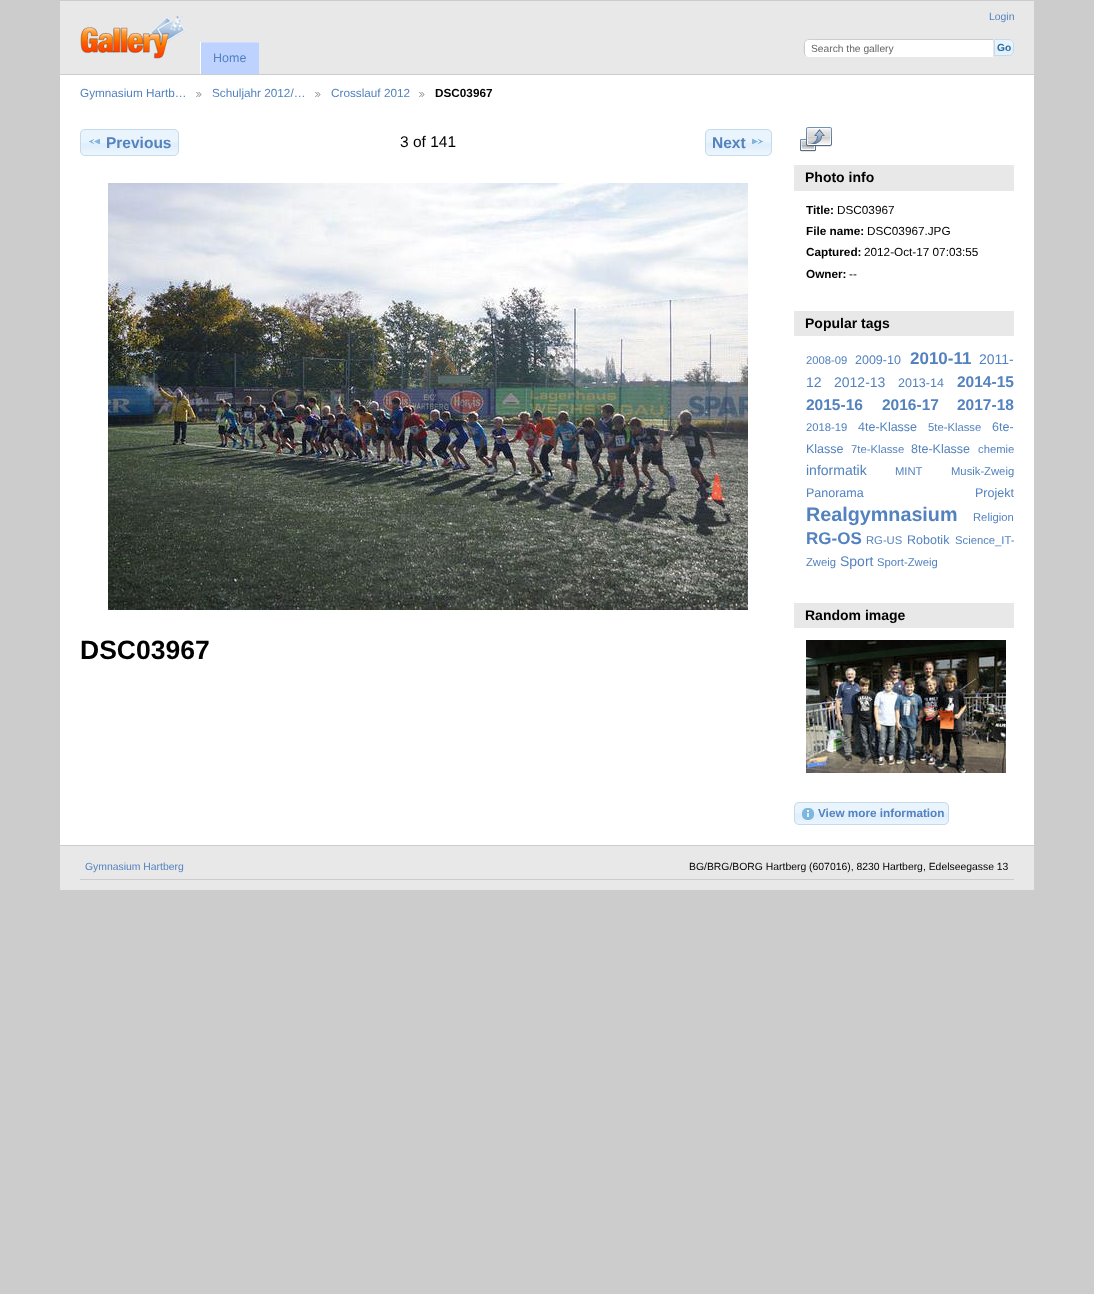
<svg xmlns="http://www.w3.org/2000/svg" width="1094" height="1294" viewBox="0 0 1094 1294">
  <style>
    .t1 { font: 10.4px Liberation Sans; fill: #5382bf; }
    .t2 { font: 10.25px Liberation Sans; fill: #666; }
    .t3 { font: bold 10.25px Liberation Sans; fill: #2e6e9e; }
    .t4 { font: 12.5px Liberation Sans; fill: #5382bf; }
    .t5 { font: 11.75px Liberation Sans; fill: #5382bf; }
    .t6 { font: bold 11.75px Liberation Sans; fill: #000; }
    .t7 { font: bold 15.5px Liberation Sans; fill: #5382bf; }
    .t8 { font: 15.5px Liberation Sans; fill: #000; }
    .t9 { font: bold 26.5px Liberation Sans; fill: #000; }
    .t10 { font: bold 14px Liberation Sans; fill: #000; }
    .t11 { font: 11.75px Liberation Sans; fill: #000; }
    .t12 { font: 11.25px Liberation Sans; fill: #5382bf; }
    .t13 { font: bold 17px Liberation Sans; fill: #5382bf; }
    .t14 { font: 14px Liberation Sans; fill: #5382bf; }
    .t15 { font: bold 19.75px Liberation Sans; fill: #5382bf; }
    .t16 { font: bold 11.75px Liberation Sans; fill: #5382bf; }
    .t17 { font: 10.4px Liberation Sans; fill: #000; }
  </style>
  <rect width="100%" height="100%" fill="#ccc"/>
  <rect x="60" y="75" width="974" height="770" fill="#fff"/>
  <rect x="60" y="1" width="974" height="73" fill="#e8e8e8"/>
  <image x="80" y="15" width="106" height="44" href="images/1.png"/>
  <text x="989" y="20" class="t1">Login</text>
  <path d="M809 39H994V58H809C806 58 804 56 804 53V44C804 41 806 39 809 39Z" fill="#fff"/>
  <path d="M809 39C808 39 806 40 805 40L806 41C807 40 808 40 809 40H993L994 39Z" fill="#ccc"/>
  <path d="M994 39L993 40V57L994 58Z" fill="#e8e8e8"/>
  <path d="M994 58L993 57H808L806 56L805 57C806 58 808 58 809 58Z" fill="#e8e8e8"/>
  <path d="M804 44C804 47 803 54.5 805.5 56.5L806 56L805 54V43.5C805 42.5 805.5 41.5 806 41L805.5 40.5C804.5 41 804 42.5 804 44Z" fill="#ccc"/>
  <text x="811" y="52" class="t2">Search the gallery</text>
  <image x="995" y="39" width="19" height="17" href="images/2.png"/>
  <path d="M994.5 39.5H1009C1011.5 39.5 1013.5 41.5 1013.5 44V51C1013.5 53.5 1011.5 55.5 1009 55.5H994.5Z" fill="none" stroke="#c5dbec"/>
  <text x="997" y="51" class="t3">Go</text>
  <rect x="201" y="43" width="58" height="31" fill="#bdd2ff"/>
  <rect x="200" y="42" width="59" height="1" fill="#cfdeff"/>
  <rect x="200" y="42" width="1" height="32" fill="#fff"/>
  <text x="213" y="62" class="t4">Home</text>
  <text x="80" y="97" class="t5">Gymnasium Hartb…</text>
  <image x="196" y="92" width="6" height="5" href="images/3.png"/>
  <text x="212" y="97" class="t5">Schuljahr 2012/…</text>
  <image x="315" y="92" width="6" height="5" href="images/3.png"/>
  <text x="331" y="97" class="t5">Crosslauf 2012</text>
  <image x="419" y="92" width="6" height="5" href="images/3.png"/>
  <text x="435" y="97" class="t6">DSC03967</text>
  <image x="80" y="129" width="99" height="27" href="images/4.png"/>
  <rect x="80.5" y="129.5" width="98" height="26" rx="4.5" fill="none" stroke="#c5dbec"/>
  <image x="89" y="139" width="11" height="5" href="images/5.png"/>
  <text x="106" y="148" class="t7">Previous</text>
  <text x="400" y="147" class="t8">3 of 141</text>
  <image x="705" y="129" width="67" height="27" href="images/6.png"/>
  <rect x="705.5" y="129.5" width="66" height="26" rx="4.5" fill="none" stroke="#c5dbec"/>
  <text x="712" y="148" class="t7">Next</text>
  <image x="752" y="139" width="11" height="5" href="images/7.png"/>
  <image x="108" y="183" width="640" height="427" href="images/8.png"/>
  <text x="80" y="659" class="t9">DSC03967</text>
  <image x="800" y="127" width="32" height="25" href="images/9.png"/>
  <rect x="794" y="165" width="220" height="26" fill="#e8e8e8"/>
  <text x="805" y="182" class="t10">Photo info</text>
  <text x="806" y="214" class="t6">Title:</text>
  <text x="837" y="214" class="t11">DSC03967</text>
  <text x="806" y="235" class="t6">File name:</text>
  <text x="867" y="235" class="t11">DSC03967.JPG</text>
  <text x="806" y="256" class="t6">Captured:</text>
  <text x="864" y="256" class="t11">2012-Oct-17 07:03:55</text>
  <text x="806" y="278" class="t6">Owner:</text>
  <text x="849" y="278" class="t11">--</text>
  <rect x="794" y="311" width="220" height="25" fill="#e8e8e8"/>
  <text x="805" y="328" class="t10">Popular tags</text>
  <text x="806" y="364" class="t12">2008-09</text>
  <text x="855" y="364" class="t4">2009-10</text>
  <text x="910" y="364" class="t13">2010-11</text>
  <text x="979" y="364" class="t14">2011-</text>
  <text x="806" y="387" class="t14">12</text>
  <text x="834" y="387" class="t14">2012-13</text>
  <text x="898" y="387" class="t4">2013-14</text>
  <text x="957" y="387" class="t7">2014-15</text>
  <text x="806" y="410" class="t7">2015-16</text>
  <text x="882" y="410" class="t7">2016-17</text>
  <text x="957" y="410" class="t7">2017-18</text>
  <text x="806" y="431" class="t12">2018-19</text>
  <text x="858" y="431" class="t4">4te-Klasse</text>
  <text x="928" y="431" class="t12">5te-Klasse</text>
  <text x="992" y="431" class="t4">6te-</text>
  <text x="806" y="453" class="t4">Klasse</text>
  <text x="851" y="453" class="t12">7te-Klasse</text>
  <text x="911" y="453" class="t4">8te-Klasse</text>
  <text x="978" y="453" class="t12">chemie</text>
  <text x="806" y="475" class="t14">informatik</text>
  <text x="895" y="475" class="t12">MINT</text>
  <text x="951" y="475" class="t12">Musik-Zweig</text>
  <text x="806" y="497" class="t4">Panorama</text>
  <text x="975" y="497" class="t4">Projekt</text>
  <text x="806" y="521" class="t15">Realgymnasium</text>
  <text x="973" y="521" class="t12">Religion</text>
  <text x="806" y="544" class="t13">RG-OS</text>
  <text x="866" y="544" class="t12">RG-US</text>
  <text x="907" y="544" class="t4">Robotik</text>
  <text x="955" y="544" class="t12">Science_IT-</text>
  <text x="806" y="566" class="t12">Zweig</text>
  <text x="840" y="566" class="t14">Sport</text>
  <text x="877" y="566" class="t12">Sport-Zweig</text>
  <rect x="794" y="603" width="220" height="25" fill="#e8e8e8"/>
  <text x="805" y="620" class="t10">Random image</text>
  <image x="806" y="640" width="200" height="133" href="images/10.png"/>
  <image x="794" y="802" width="155" height="23" href="images/11.png"/>
  <rect x="794.5" y="802.5" width="154" height="22" rx="4.5" fill="none" stroke="#c5dbec"/>
  <image x="802" y="808" width="12" height="12" href="images/12.png"/>
  <text x="818" y="817" class="t16">View more information</text>
  <rect x="60" y="846" width="974" height="44" fill="#e8e8e8"/>
  <text x="85" y="870" class="t1">Gymnasium Hartberg</text>
  <rect x="80" y="879" width="934" height="1" fill="#ccc"/>
  <text x="689" y="870" class="t17">BG/BRG/BORG Hartberg (607016), 8230 Hartberg, Edelseegasse 13</text>
</svg>
